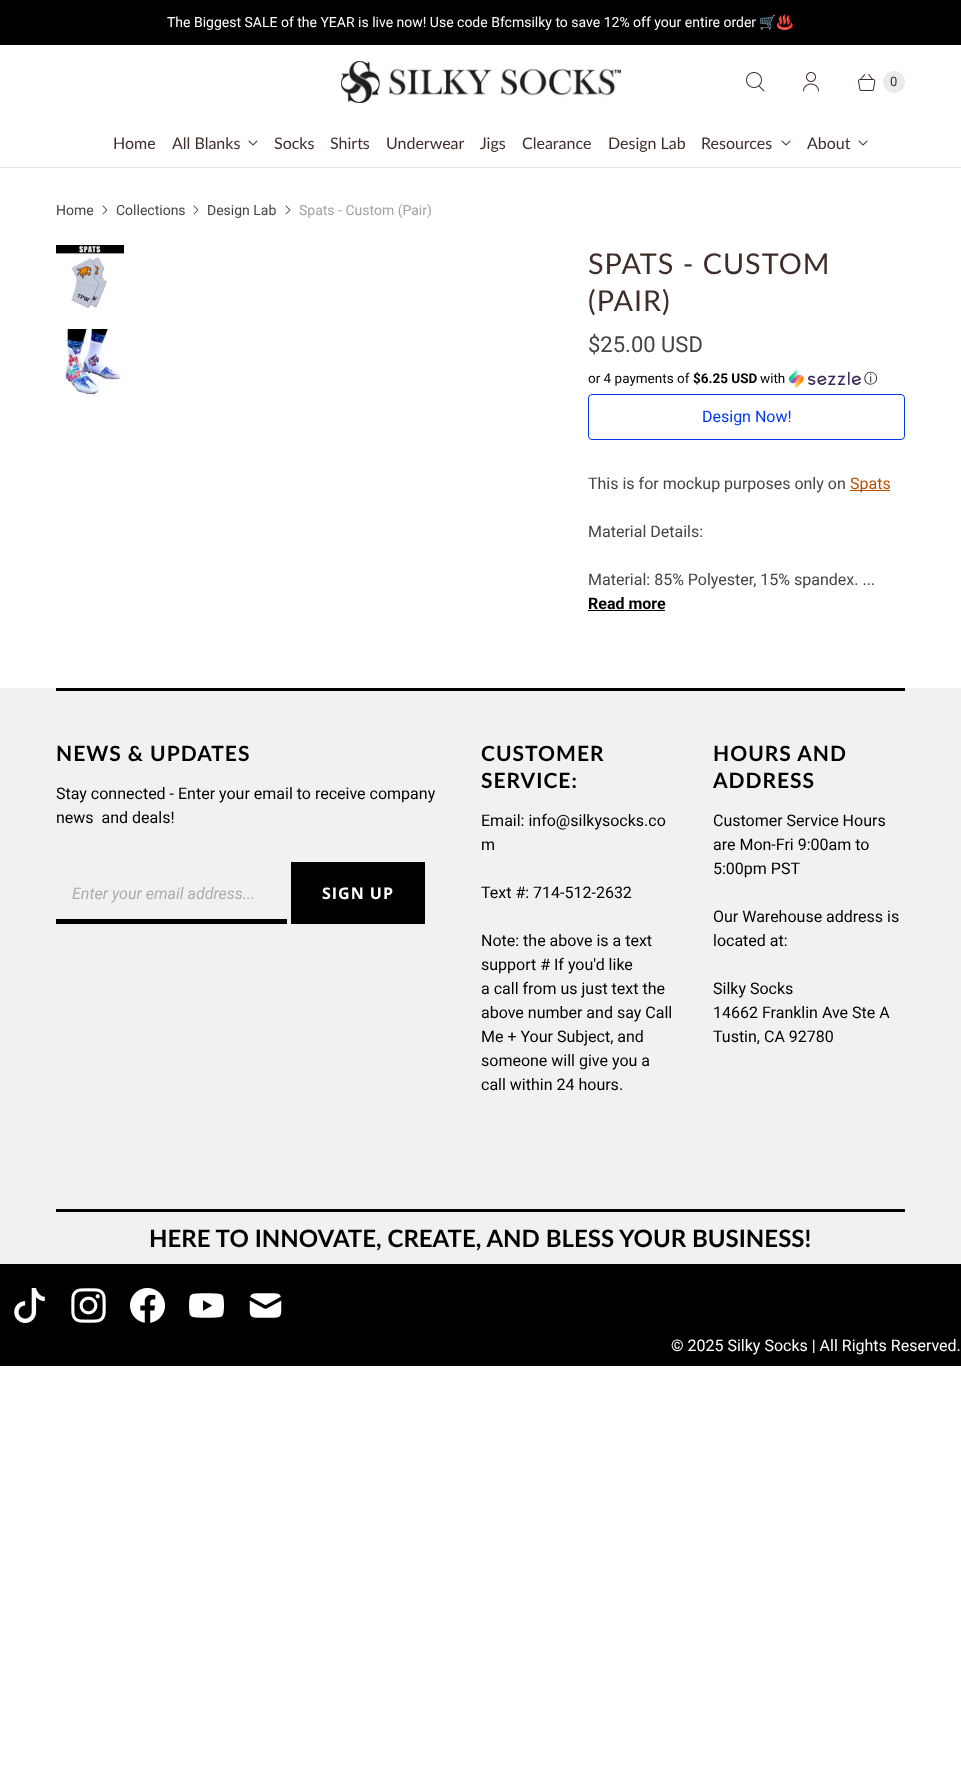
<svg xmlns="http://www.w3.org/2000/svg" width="961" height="1781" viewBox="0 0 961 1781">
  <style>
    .t1 { font: 14px Roboto; fill: #fff; }
    .t2 { font: 14px Noto Color Emoji; fill: #fff; }
    .t3 { font: 13px Roboto; fill: #3e2d29; }
    .t4 { font: 16px Lato; fill: #3e2d29; }
    .t5 { font: 14px Roboto; fill: #444; }
    .t6 { font: 14px Roboto; fill: #a2a2a2; }
    .t7 { font: 28.75px Lato; letter-spacing: 1px; fill: #3e2d29; }
    .t8 { font: 22px Roboto; fill: #444; }
    .t9 { font: 13.5px Roboto; fill: #000; }
    .t10 { font: bold 13.5px Roboto; fill: #000; }
    .t11 { font: 500 13.5px WenQuanYi Zen Hei; fill: #000; }
    .t12 { font: 16px Roboto; fill: #0237f1; }
    .t13 { font: 16px Roboto; fill: #444; }
    .t14 { font: 16px Roboto; fill: #b75100; }
    .t15 { font: bold 16px Roboto; fill: #000; }
    .t16 { font: bold 21px Lato; letter-spacing: 1px; fill: #000; }
    .t17 { font: 16px Roboto; fill: #000; }
    .t18 { font: italic 16px Roboto; fill: #acacac; }
    .t19 { font: bold 16px Open Sans; letter-spacing: 1px; fill: #fff; }
    .t20 { font: bold 24px Lato; fill: #000; }
    .t21 { font: 16px Roboto; fill: #fff; }
  </style>
  <rect width="100%" height="100%" fill="#fff"/>
  <rect x="0" y="0" width="961" height="45" fill="#000"/>
  <text x="167" y="27" class="t1">The Biggest SALE of the YEAR is live now! Use code Bfcmsilky to save 12% off your entire order</text>
  <text x="759" y="27" class="t2">🛒♨️</text>
  <rect x="0" y="167" width="961" height="1" fill="#e5e5e5"/>
  <image x="341" y="61" width="280" height="42" href="images/1.png"/>
  <image x="746" y="72" width="19" height="20" href="images/2.png"/>
  <image x="803" y="72" width="16" height="20" href="images/3.png"/>
  <image x="858" y="74" width="18" height="17" href="images/4.png"/>
  <circle cx="894" cy="82" r="11" fill="#eceaea"/>
  <text x="890" y="86" class="t3">0</text>
  <text x="113" y="149" class="t4">Home</text>
  <text x="172" y="149" class="t4">All Blanks</text>
  <image x="248" y="140" width="10" height="6" href="images/5.png"/>
  <text x="274" y="149" class="t4">Socks</text>
  <text x="330" y="149" class="t4">Shirts</text>
  <text x="386" y="149" class="t4">Underwear</text>
  <text x="480" y="149" class="t4">Jigs</text>
  <text x="522" y="149" class="t4">Clearance</text>
  <text x="608" y="149" class="t4">Design Lab</text>
  <text x="701" y="149" class="t4">Resources</text>
  <image x="781" y="140" width="10" height="6" href="images/5.png"/>
  <text x="807" y="149" class="t4">About</text>
  <image x="858" y="140" width="10" height="6" href="images/5.png"/>
  <text x="56" y="215" class="t5">Home</text>
  <image x="102" y="205" width="6" height="10" href="images/6.png"/>
  <text x="116" y="215" class="t5">Collections</text>
  <image x="193" y="205" width="6" height="10" href="images/6.png"/>
  <text x="207" y="215" class="t5">Design Lab</text>
  <image x="285" y="205" width="6" height="10" href="images/6.png"/>
  <text x="299" y="215" class="t6">Spats - Custom (Pair)</text>
  <image x="56" y="245" width="68" height="64" href="images/7.png"/>
  <image x="63" y="329" width="58" height="67" href="images/8.png"/>
  <text x="588" y="274" class="t7">SPATS - CUSTOM</text>
  <text x="588" y="311" class="t7">(PAIR)</text>
  <text x="588" y="352" class="t8">$25.00 USD</text>
  <text x="588" y="383" class="t9">or 4 payments of</text>
  <text x="693" y="383" class="t10">$6.25 USD</text>
  <text x="760" y="383" class="t9">with</text>
  <image x="789" y="370" width="72" height="18" href="images/9.png"/>
  <text x="864" y="383" class="t11">ⓘ</text>
  <rect x="588.5" y="394.5" width="316" height="45" rx="3.5" fill="none" stroke="#0237f1"/>
  <text x="702" y="422" class="t12">Design Now!</text>
  <text x="588" y="489" class="t13">This is for mockup purposes only on</text>
  <rect x="850" y="490" width="40" height="1" fill="#b75100"/>
  <text x="850" y="489" class="t14">Spats</text>
  <text x="588" y="537" class="t13">Material Details:</text>
  <text x="588" y="585" class="t13">Material: 85% Polyester, 15% spandex. ...</text>
  <text x="588" y="609" class="t15">Read more</text>
  <rect x="588" y="610" width="77" height="1" fill="#000"/>
  <rect x="0" y="688" width="961" height="576" fill="#f1f1f1"/>
  <rect x="56" y="688" width="849" height="3" fill="#000"/>
  <rect x="56" y="1209" width="849" height="3" fill="#000"/>
  <text x="56" y="761" class="t16">NEWS &amp; UPDATES</text>
  <text x="56" y="799" class="t17">Stay connected - Enter your email to receive company</text>
  <text x="56" y="823" class="t17" xml:space="preserve">news  and deals!</text>
  <rect x="56" y="919" width="231" height="5" fill="#000"/>
  <text x="72" y="899" class="t18">Enter your email address...</text>
  <rect x="292" y="863" width="132" height="53" fill="#000"/>
  <rect x="291" y="862" width="134" height="1" fill="#000"/>
  <rect x="424" y="862" width="1" height="62" fill="#000"/>
  <rect x="291" y="916" width="134" height="8" fill="#000"/>
  <rect x="291" y="862" width="1" height="62" fill="#000"/>
  <text x="322" y="899" class="t19">SIGN UP</text>
  <text x="481" y="761" class="t16">CUSTOMER</text>
  <text x="481" y="788" class="t16">SERVICE:</text>
  <text x="481" y="826" class="t17">Email: info@silkysocks.co</text>
  <text x="481" y="850" class="t17">m</text>
  <text x="481" y="898" class="t17">Text #: 714-512-2632</text>
  <text x="481" y="946" class="t17">Note: the above is a text</text>
  <text x="481" y="970" class="t17">support # If you'd like</text>
  <text x="481" y="994" class="t17">a call from us just text the</text>
  <text x="481" y="1018" class="t17">above number and say Call</text>
  <text x="481" y="1042" class="t17">Me + Your Subject, and</text>
  <text x="481" y="1066" class="t17">someone will give you a</text>
  <text x="481" y="1090" class="t17">call within 24 hours.</text>
  <text x="713" y="761" class="t16">HOURS AND</text>
  <text x="713" y="788" class="t16">ADDRESS</text>
  <text x="713" y="826" class="t17">Customer Service Hours</text>
  <text x="713" y="850" class="t17">are Mon-Fri 9:00am to</text>
  <text x="713" y="874" class="t17">5:00pm PST</text>
  <text x="713" y="922" class="t17">Our Warehouse address is</text>
  <text x="713" y="946" class="t17">located at:</text>
  <text x="713" y="994" class="t17">Silky Socks</text>
  <text x="713" y="1018" class="t17">14662 Franklin Ave Ste A</text>
  <text x="713" y="1042" class="t17">Tustin, CA 92780</text>
  <text x="149" y="1247" class="t20">HERE TO INNOVATE, CREATE, AND BLESS YOUR BUSINESS!</text>
  <rect x="0" y="1264" width="961" height="102" fill="#000"/>
  <image x="14" y="1288" width="31" height="35" href="images/10.png"/>
  <image x="71" y="1288" width="35" height="35" href="images/11.png"/>
  <image x="130" y="1288" width="35" height="35" href="images/12.png"/>
  <image x="189" y="1293" width="35" height="25" href="images/13.png"/>
  <image x="249" y="1293" width="33" height="25" href="images/14.png"/>
  <text x="671" y="1351" class="t21">© 2025 Silky Socks | All Rights Reserved.</text>
</svg>
